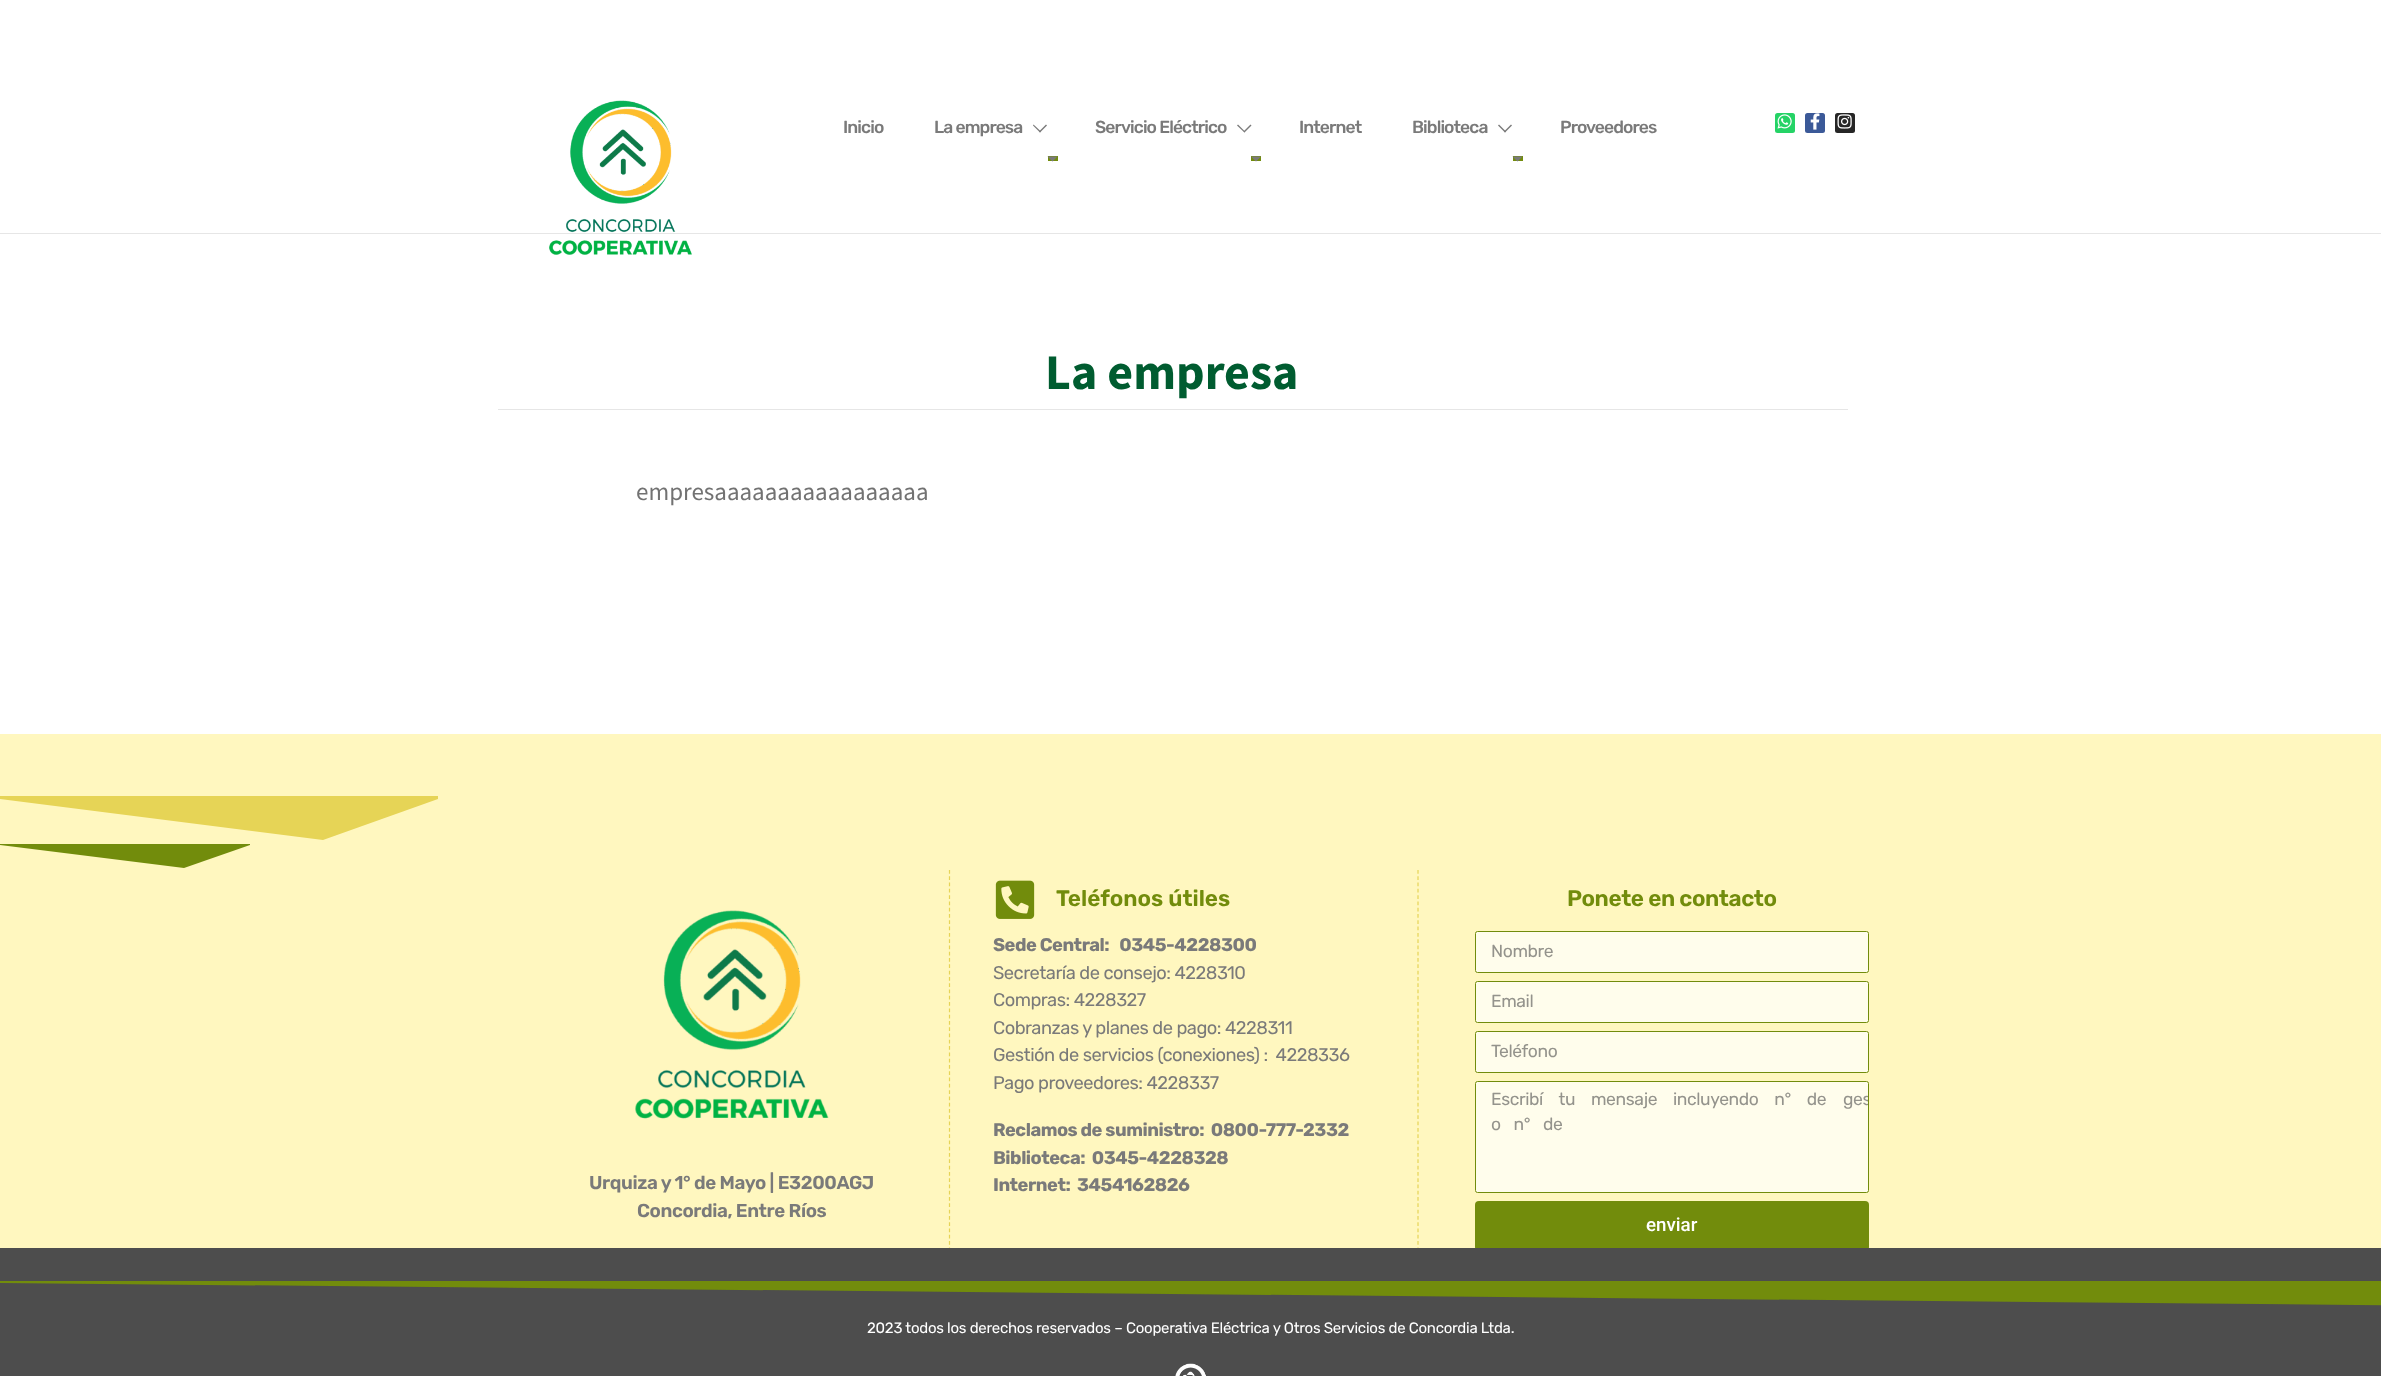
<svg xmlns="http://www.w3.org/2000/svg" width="2381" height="1376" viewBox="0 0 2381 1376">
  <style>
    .t1 { font: 500 17.5px Rubik; letter-spacing: -0.9px; fill: #7a7a7a; }
    .t2 { font: bold 50px Source Sans Pro; fill: #005c30; }
    .t3 { font: 25px Source Sans Pro; fill: #727272; }
    .t4 { font: 600 18.75px Rubik; letter-spacing: -0.4px; fill: #7a7a7a; }
    .t5 { font: 600 22.5px Rubik; fill: #728c0c; }
    .t6 { font: bold 18.3px Rubik; letter-spacing: -0.5px; fill: #7a7a7a; }
    .t7 { font: 18.3px Rubik; letter-spacing: -0.5px; fill: #7a7a7a; }
    .t8 { font: 600 22.5px Rubik; letter-spacing: -0.4px; fill: #728c0c; }
    .t9 { font: 17.5px Rubik; letter-spacing: -0.4px; fill: #94938c; }
    .t10 { font: 500 18.75px Roboto; fill: #fff; }
    .t11 { font: 15px Rubik; letter-spacing: -0.25px; fill: #fff; }
  </style>
  <defs>
    <clipPath id="clip1"><rect x="1476" y="1083" width="392" height="108" rx="1"/></clipPath>
  </defs>
  <rect width="100%" height="100%" fill="#fff"/>
  <rect x="0" y="233" width="2381" height="1" fill="#e6e6e6"/>
  <image x="549" y="100" width="143" height="155" href="images/1.png"/>
  <text x="843" y="133" class="t1">Inicio</text>
  <text x="934" y="133" class="t1">La empresa</text>
  <path d="M1047 125.5L1040 132.5L1039 131.5L1046 124.5Z" fill="#7a7a7a"/>
  <path d="M1041 131.5L1040 132.5L1033 125.5L1033.5 124.5Z" fill="#7a7a7a"/>
  <rect x="1048" y="156" width="10" height="5" fill="#728c0c"/>
  <path d="M1047.5 156.5H1057.5L1052.5 161.5Z" fill="#7a7a7a"/>
  <text x="1095" y="133" class="t1">Servicio Eléctrico</text>
  <path d="M1251.5 125.5L1244.5 132.5L1243.5 131.5L1250.5 124.5Z" fill="#7a7a7a"/>
  <path d="M1245 131.5L1244.5 132.5L1237 125.5L1238 124.5Z" fill="#7a7a7a"/>
  <rect x="1251" y="156" width="10" height="5" fill="#728c0c"/>
  <path d="M1251 156.5H1261L1256 161.5Z" fill="#7a7a7a"/>
  <text x="1299" y="133" class="t1">Internet</text>
  <text x="1412" y="133" class="t1">Biblioteca</text>
  <path d="M1512 125.5L1505 132.5L1504 131.5L1511 124.5Z" fill="#7a7a7a"/>
  <path d="M1506 131.5L1505 132.5L1498 125.5L1499 124.5Z" fill="#7a7a7a"/>
  <rect x="1513" y="156" width="10" height="5" fill="#728c0c"/>
  <path d="M1512.5 156.5H1522.5L1517.5 161.5Z" fill="#7a7a7a"/>
  <text x="1560" y="133" class="t1">Proveedores</text>
  <rect x="1775" y="113" width="20" height="20" rx="2.5" fill="#25d366"/>
  <image x="1777" y="114" width="15" height="15" href="images/2.png"/>
  <rect x="1805" y="113" width="20" height="20" rx="2.5" fill="#3b5998"/>
  <image x="1810" y="113" width="10" height="17" href="images/3.png"/>
  <rect x="1835" y="113" width="20" height="20" rx="2.5" fill="#262626"/>
  <image x="1837" y="114" width="15" height="15" href="images/4.png"/>
  <text x="1045" y="389" class="t2">La empresa</text>
  <rect x="498" y="409" width="1350" height="1" fill="#e6e6e6"/>
  <text x="636" y="500" class="t3">empresaaaaaaaaaaaaaaaaa</text>
  <rect x="0" y="734" width="2381" height="514" fill="#fff7bf"/>
  <path d="M323 840L438 799V796H0V799Z" fill="#e6d456"/>
  <path d="M184 868L250 845V844H0V845Z" fill="#728c0c"/>
  <image x="635" y="910" width="194" height="209" href="images/5.png"/>
  <text x="589" y="1189" class="t4">Urquiza y 1° de Mayo | E3200AGJ</text>
  <text x="637" y="1217" class="t4">Concordia, Entre Ríos</text>
  <path d="M1418 870V1251" fill="none" stroke="#e6d456" stroke-width="1.2" stroke-dasharray="3.75 2.54"/>
  <path d="M949.5 870V1251" fill="none" stroke="#e6d456" stroke-width="1.2" stroke-dasharray="3.75 2.54"/>
  <image x="995" y="880" width="40" height="39" href="images/6.png"/>
  <text x="1056" y="906" class="t5">Teléfonos útiles</text>
  <text x="993" y="951" class="t6" xml:space="preserve">Sede Central:   0345-4228300</text>
  <text x="993" y="979" class="t7">Secretaría de consejo: 4228310</text>
  <text x="993" y="1006" class="t7">Compras: 4228327</text>
  <text x="993" y="1034" class="t7">Cobranzas y planes de pago: 4228311</text>
  <text x="993" y="1061" class="t7" xml:space="preserve">Gestión de servicios (conexiones) :  4228336</text>
  <text x="993" y="1089" class="t7">Pago proveedores: 4228337</text>
  <text x="993" y="1136" class="t6" xml:space="preserve">Reclamos de suministro:  0800-777-2332</text>
  <text x="993" y="1164" class="t6" xml:space="preserve">Biblioteca:  0345-4228328</text>
  <text x="993" y="1191" class="t6" xml:space="preserve">Internet:  3454162826</text>
  <text x="1567" y="906" class="t8">Ponete en contacto</text>
  <rect x="1475.5" y="931.5" width="393" height="41" rx="2" fill="#fffdec" stroke="#728c0c"/>
  <text x="1491" y="957" class="t9">Nombre</text>
  <rect x="1475.5" y="981.5" width="393" height="41" rx="2" fill="#fffdec" stroke="#728c0c"/>
  <text x="1491" y="1007" class="t9">Email</text>
  <rect x="1475.5" y="1031.5" width="393" height="41" rx="2" fill="#fffdec" stroke="#728c0c"/>
  <text x="1491" y="1057" class="t9">Teléfono</text>
  <rect x="1475.5" y="1081.5" width="393" height="111" rx="2" fill="#fffdec" stroke="#728c0c"/>
  <text x="1491" y="1105" word-spacing="12" class="t9">Escribí tu mensaje incluyendo n° de</text>
  <g clip-path="url(#clip1)">
    <text x="1843" y="1105" class="t9">ges</text>
  </g>
  <text x="1491" y="1130" word-spacing="9" class="t9">o n° de</text>
  <rect x="1475" y="1201" width="394" height="50" rx="4" fill="#728c0c"/>
  <text x="1646" y="1231" class="t10">enviar</text>
  <rect x="0" y="1248" width="2381" height="128" fill="#4d4d4d"/>
  <path d="M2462 1306L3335 1283V1281H0V1283Z" fill="#728c0c"/>
  <text x="867" y="1333" class="t11">2023 todos los derechos reservados – Cooperativa Eléctrica y Otros Servicios de Concordia Ltda.</text>
  <image x="1175" y="1363" width="31" height="13" href="images/7.png"/>
</svg>
